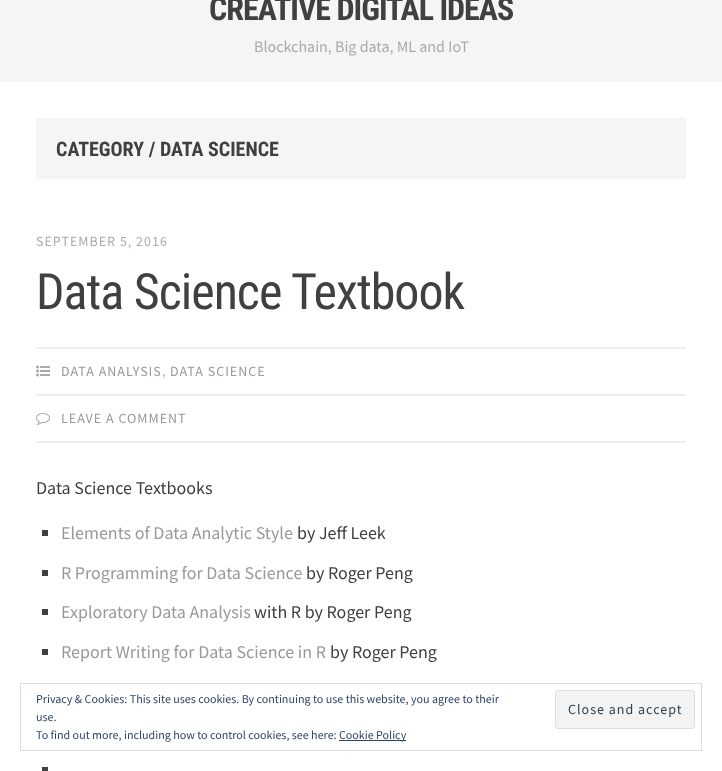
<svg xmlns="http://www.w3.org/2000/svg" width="722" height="771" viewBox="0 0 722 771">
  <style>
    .t1 { font: bold 32px Roboto Condensed; letter-spacing: -1px; fill: #404040; }
    .t2 { font: 16px Source Sans Pro; fill: #aaa; }
    .t3 { font: bold 20px Roboto Condensed; fill: #404040; }
    .t4 { font: 14px Source Sans Pro; letter-spacing: 1px; fill: #aaa; }
    .t5 { font: 50px Roboto Condensed; letter-spacing: -1px; fill: #404040; }
    .t6 { font: 14px Source Sans Pro; letter-spacing: 1px; fill: #999; }
    .t7 { font: 18px Source Sans Pro; fill: #404040; }
    .t8 { font: 18px Source Sans Pro; fill: #999; }
    .t9 { font: 12px Source Sans Pro; fill: #2e4467; }
    .t10 { font: 14px Source Sans Pro; letter-spacing: 1px; fill: #2e4453; }
  </style>
  <rect width="100%" height="100%" fill="#fff"/>
  <rect x="0" y="0" width="722" height="82" fill="#f5f5f5"/>
  <text x="209" y="20" class="t1">CREATIVE DIGITAL IDEAS</text>
  <text x="254" y="52" class="t2">Blockchain, Big data, ML and IoT</text>
  <rect x="36" y="118" width="650" height="61" fill="#f5f5f5"/>
  <text x="56" y="156" class="t3">CATEGORY / DATA SCIENCE</text>
  <text x="36" y="246" class="t4">SEPTEMBER 5, 2016</text>
  <text x="36" y="309" class="t5">Data Science Textbook</text>
  <rect x="36" y="347" width="650" height="2" fill="#eee"/>
  <rect x="36" y="394" width="650" height="2" fill="#eee"/>
  <image x="36" y="365" width="14" height="12" href="images/1.png"/>
  <text x="61" y="376" class="t6">DATA ANALYSIS</text>
  <text x="162" y="376" class="t4">,</text>
  <text x="170" y="376" class="t6">DATA SCIENCE</text>
  <rect x="36" y="441" width="650" height="2" fill="#eee"/>
  <image x="36" y="413" width="14" height="12" href="images/2.png"/>
  <text x="61" y="423" class="t6">LEAVE A COMMENT</text>
  <text x="36" y="494" class="t7">Data Science Textbooks</text>
  <rect x="42" y="530" width="6" height="6" fill="#404040"/>
  <text x="61" y="539" class="t8">Elements of Data Analytic Style</text>
  <text x="297" y="539" class="t7">by Jeff Leek</text>
  <rect x="42" y="570" width="6" height="6" fill="#404040"/>
  <text x="61" y="579" class="t8">R Programming for Data Science</text>
  <text x="306" y="579" class="t7">by Roger Peng</text>
  <rect x="42" y="609" width="6" height="6" fill="#404040"/>
  <text x="61" y="618" class="t8">Exploratory Data Analysis</text>
  <text x="254" y="618" class="t7">with R by Roger Peng</text>
  <rect x="42" y="649" width="6" height="6" fill="#404040"/>
  <text x="61" y="658" class="t8">Report Writing for Data Science in R</text>
  <text x="330" y="658" class="t7">by Roger Peng</text>
  <rect x="42" y="767" width="6" height="4" fill="#404040"/>
  <rect x="20.5" y="683.5" width="681" height="67" fill="none" stroke="#dedede"/>
  <text x="36" y="703" class="t9">Privacy &amp; Cookies: This site uses cookies. By continuing to use this website, you agree to their</text>
  <rect x="555.5" y="690.5" width="139" height="38" rx="2.5" fill="#f3f3f3" stroke="#dedede"/>
  <text x="568" y="714" class="t10">Close and accept</text>
  <text x="36" y="721" class="t9">use.</text>
  <text x="36" y="739" class="t9">To find out more, including how to control cookies, see here:</text>
  <rect x="339" y="740" width="67" height="1" fill="#2e4467"/>
  <text x="339" y="739" class="t9">Cookie Policy</text>
</svg>
